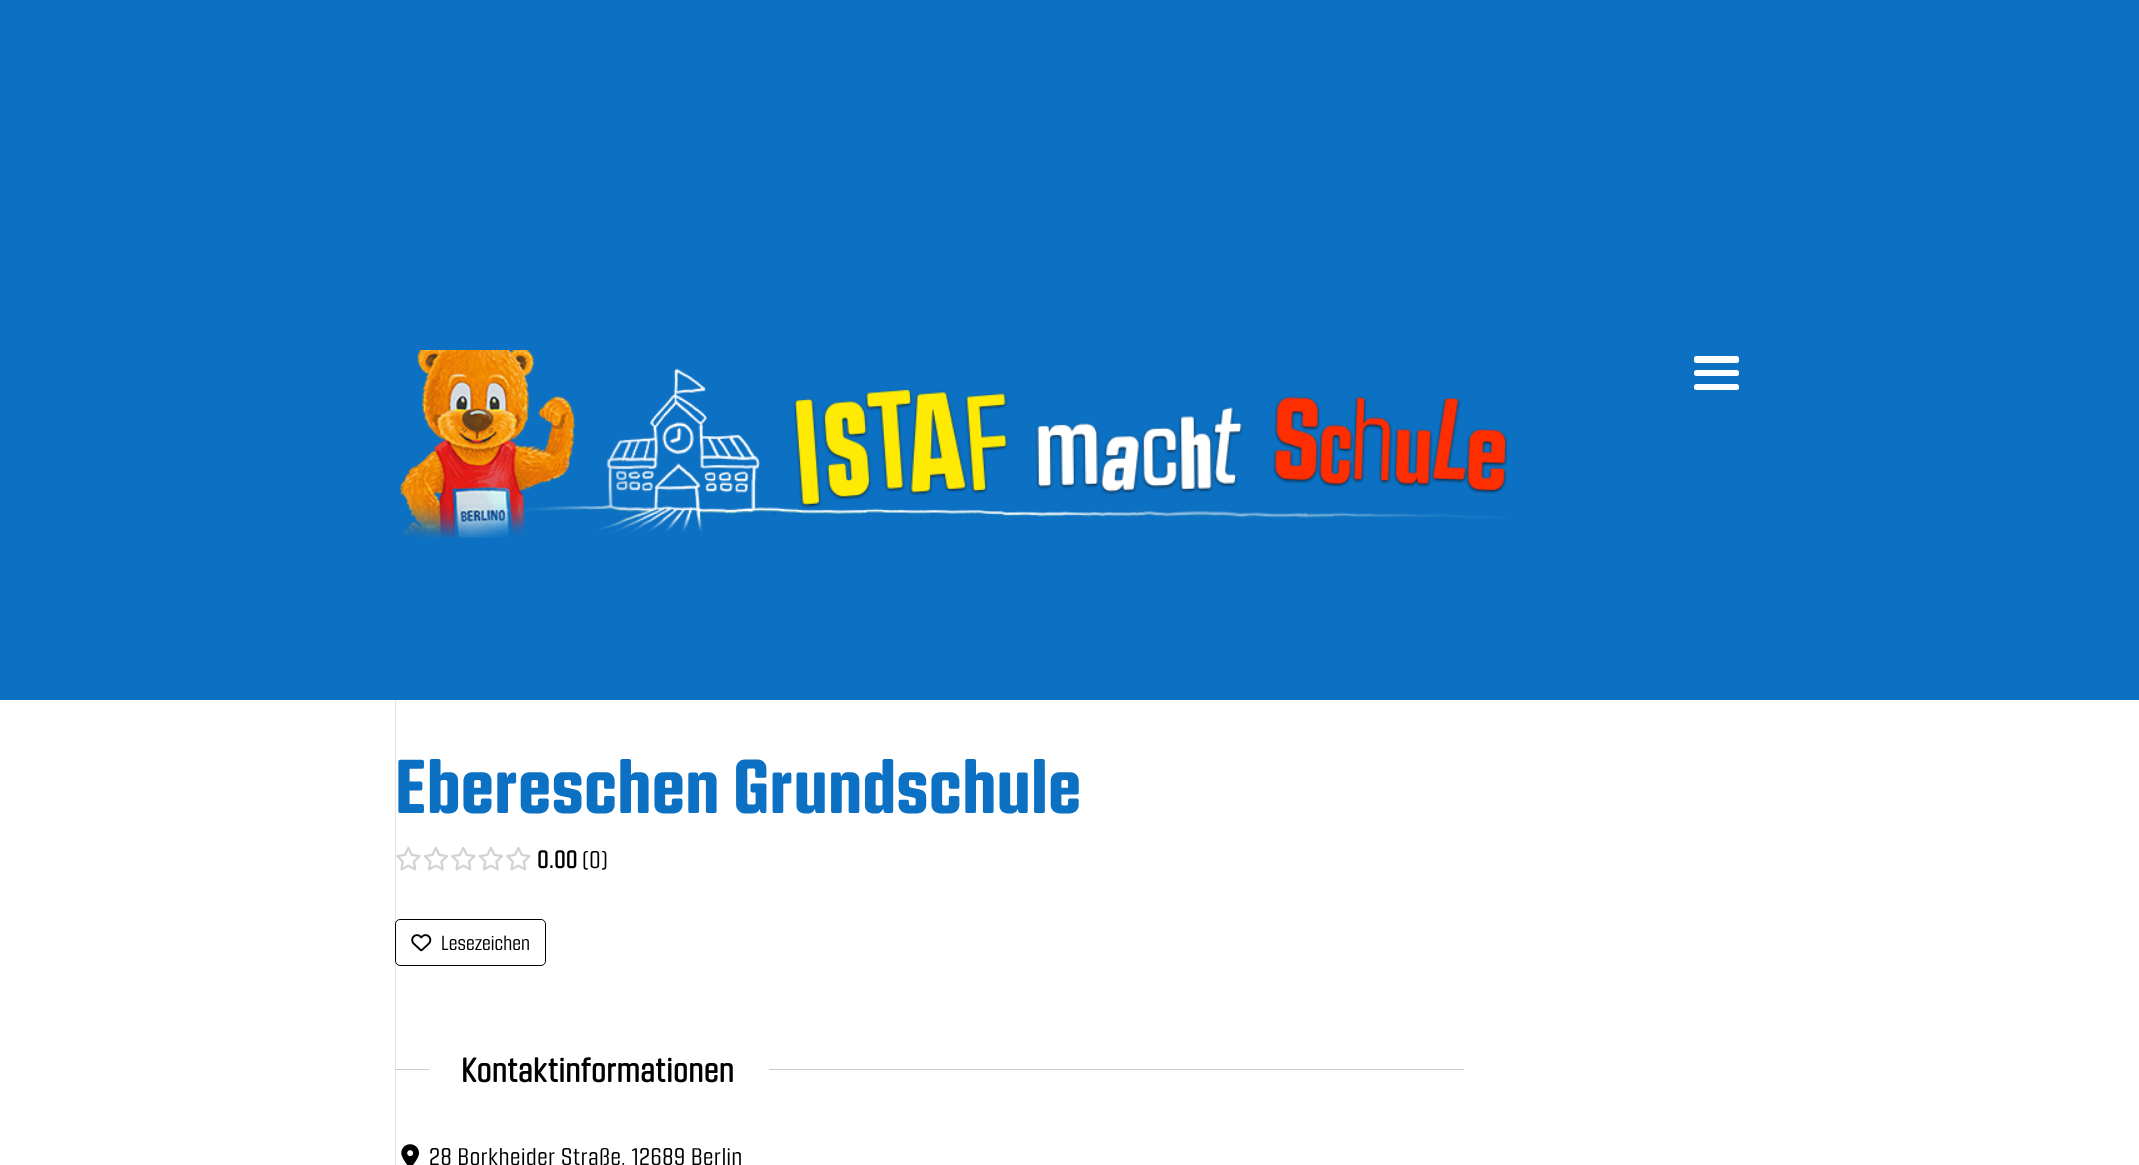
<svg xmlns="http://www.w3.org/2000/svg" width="2139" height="1165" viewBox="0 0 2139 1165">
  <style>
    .t1 { font: 900 75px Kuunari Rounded; letter-spacing: 0.6px; fill: #0c71c3; }
    .t2 { font: bold 23.75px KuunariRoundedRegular; letter-spacing: 0.6px; fill: #000; }
    .t3 { font: 23.75px KuunariRoundedRegular; letter-spacing: 0.6px; fill: #000; }
    .t4 { font: 20px KuunariRoundedRegular; fill: #000; }
    .t5 { font: bold 33.25px KuunariRoundedRegular; letter-spacing: 0.6px; fill: #000; }
  </style>
  <rect width="100%" height="100%" fill="#0c71c3"/>
  <image x="399" y="350" width="1109" height="188" href="images/1.png"/>
  <rect x="1694" y="356" width="45" height="7" rx="2.5" fill="#fff"/>
  <rect x="1694" y="370" width="45" height="6" rx="2.5" fill="#fff"/>
  <rect x="1694" y="384" width="45" height="6" rx="2.5" fill="#fff"/>
  <rect x="0" y="700" width="2139" height="465" fill="#fff"/>
  <rect x="395" y="700" width="1" height="465" fill="#e2e2e2"/>
  <text x="395" y="813" class="t1">Ebereschen Grundschule</text>
  <image x="396" y="846" width="25" height="25" href="images/2.png"/>
  <image x="423" y="846" width="25" height="25" href="images/3.png"/>
  <image x="451" y="846" width="25" height="25" href="images/2.png"/>
  <image x="478" y="846" width="25" height="25" href="images/3.png"/>
  <image x="506" y="846" width="25" height="25" href="images/2.png"/>
  <text x="537" y="868" class="t2">0.00</text>
  <text x="582" y="868" class="t3">(0</text>
  <text x="601" y="868" class="t3">)</text>
  <rect x="395.5" y="919.5" width="150" height="46" rx="4.5" fill="none" stroke="#000"/>
  <image x="411" y="934" width="21" height="18" href="images/4.png"/>
  <text x="441" y="950" class="t4">Lesezeichen</text>
  <rect x="395" y="1069" width="1069" height="1" fill="#ccc"/>
  <rect x="429" y="1069" width="340" height="1" fill="#fff"/>
  <text x="461" y="1082" class="t5">Kontaktinformationen</text>
  <image x="401" y="1144" width="18" height="21" href="images/5.png"/>
  <text x="429" y="1165" class="t3">28 Borkheider Straße, 12689 Berlin</text>
</svg>
